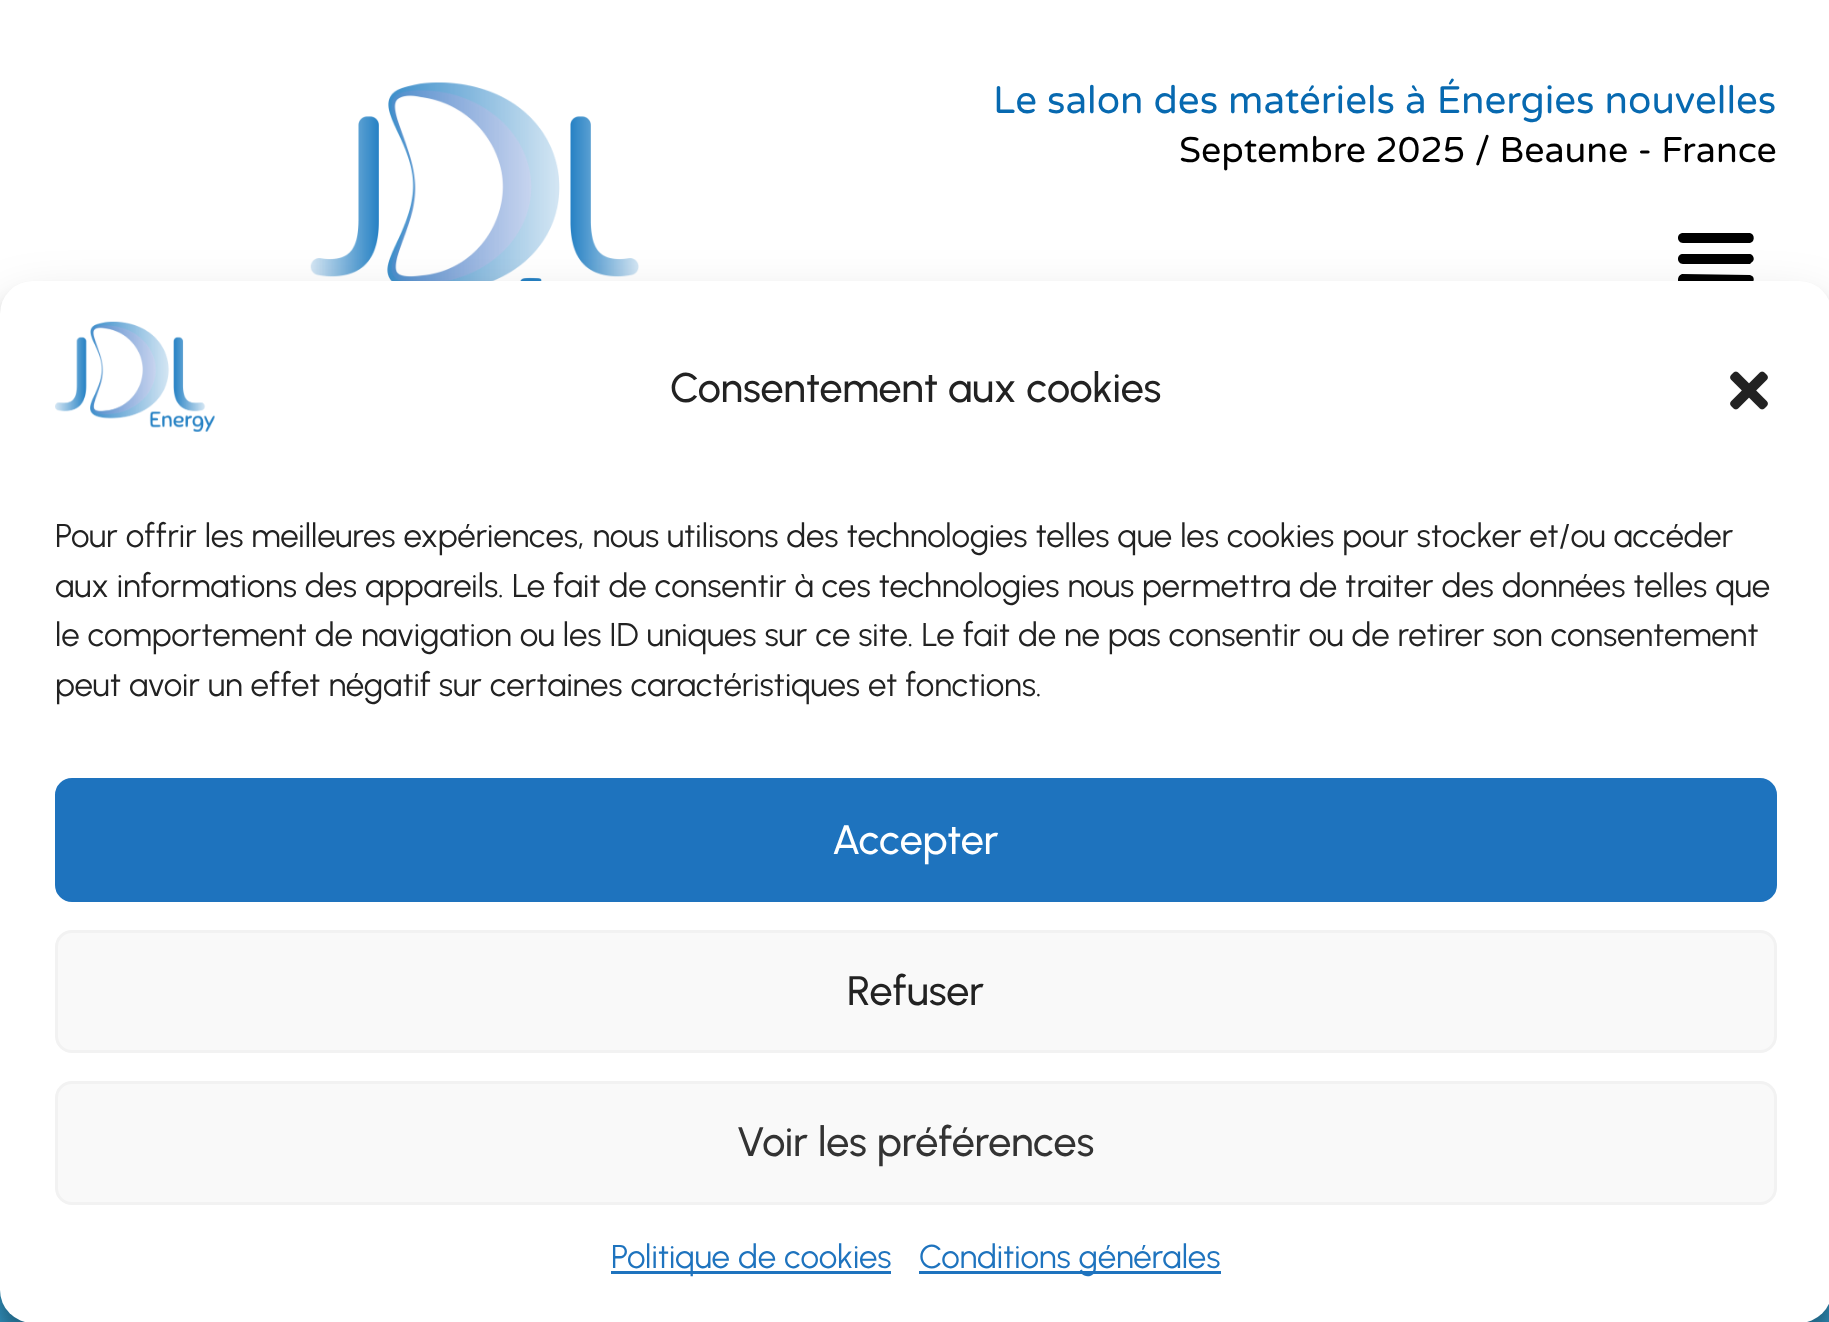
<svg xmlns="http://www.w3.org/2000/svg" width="1829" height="1322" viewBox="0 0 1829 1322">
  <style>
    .t1 { font: 38.5px Varela Round; fill: #0769b0; }
    .t2 { font: 35.75px Varela Round; fill: #000; }
    .t3 { font: 500 41.25px Urbanist; fill: #222; }
    .t4 { font: 33px Urbanist; fill: #222; }
    .t5 { font: 500 41.25px Urbanist; fill: #fff; }
    .t6 { font: 500 41.25px Urbanist; fill: #333; }
    .t7 { font: 33px Urbanist; fill: #1e73be; }
  </style>
  <defs>
    <linearGradient id="g1" gradientUnits="userSpaceOnUse" x1="916" y1="737" x2="916" y2="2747"><stop offset="0" stop-color="#45aace"/><stop offset="1" stop-color="#0769b0"/></linearGradient>
  </defs>
  <rect width="100%" height="100%" fill="#fff"/>
  <image x="310" y="82" width="329" height="199" href="images/1.png"/>
  <text x="993" y="113" class="t1">Le salon des matériels à Énergies nouvelles</text>
  <text x="1179" y="162" class="t2">Septembre 2025 / Beaune - France</text>
  <path d="M1683 243H1750L1752 242C1755 239 1754 234 1750 233H1682C1676 234 1677 243 1683 243ZM1683 264H1750L1752 262C1755 260 1754 255 1750 254H1682C1676 255 1677 264 1683 264ZM1683 285H1750L1752 283C1755 280 1754 276 1750 275L1682 274C1676 276 1677 285 1683 285Z" fill="#000"/>
  <rect x="0" y="1290" width="1829" height="32" fill="url(#g1)"/>
  <rect x="0" y="297" width="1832" height="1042" rx="33" fill="#0000003b" filter="blur(8px)"/>
  <rect x="0" y="308" width="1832" height="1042" rx="33" fill="#00000030" filter="blur(27.5px)"/>
  <rect x="0" y="281" width="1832" height="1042" rx="33" fill="#fff"/>
  <image x="55" y="321" width="160" height="111" href="images/2.png"/>
  <text x="670" y="402" class="t3">Consentement aux cookies</text>
  <image x="1730" y="371" width="38" height="39" href="images/3.png"/>
  <text x="55" y="547" class="t4">Pour offrir les meilleures expériences, nous utilisons des technologies telles que les cookies pour stocker et/ou accéder</text>
  <text x="55" y="597" class="t4">aux informations des appareils. Le fait de consentir à ces technologies nous permettra de traiter des données telles que</text>
  <text x="55" y="646" class="t4">le comportement de navigation ou les ID uniques sur ce site. Le fait de ne pas consentir ou de retirer son consentement</text>
  <text x="55" y="696" class="t4">peut avoir un effet négatif sur certaines caractéristiques et fonctions.</text>
  <rect x="56.5" y="779.5" width="1719" height="121" rx="15.5" fill="#1e73be" stroke="#1e73be" stroke-width="3"/>
  <text x="832" y="854" class="t5">Accepter</text>
  <rect x="56.5" y="931.5" width="1719" height="120" rx="15.5" fill="#f9f9f9" stroke="#f2f2f2" stroke-width="3"/>
  <text x="847" y="1005" class="t3">Refuser</text>
  <rect x="56.5" y="1082.5" width="1719" height="121" rx="15.5" fill="#f9f9f9" stroke="#f2f2f2" stroke-width="3"/>
  <text x="737" y="1156" class="t6">Voir les préférences</text>
  <rect x="611" y="1271" width="280" height="3" fill="#1e73be"/>
  <text x="611" y="1268" class="t7">Politique de cookies</text>
  <rect x="919" y="1271" width="302" height="3" fill="#1e73be"/>
  <text x="919" y="1268" class="t7">Conditions générales</text>
</svg>
